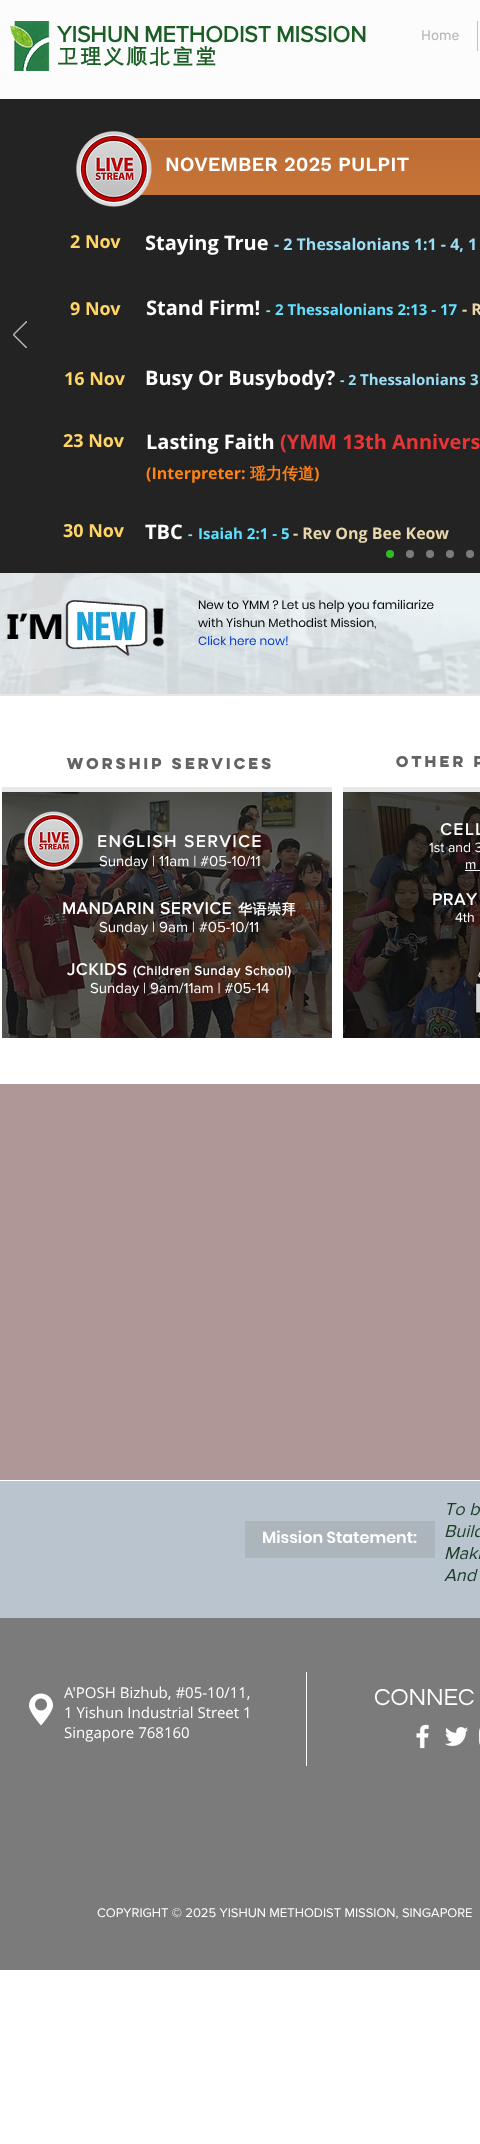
<svg xmlns="http://www.w3.org/2000/svg" width="480" height="2144" viewBox="0 0 480 2144">
  <style>
    .t1 { font: bold 23px 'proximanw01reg'; fill: #1a5e25; }
    .t2 { font: 14px Rubik; fill: #b8b8b8; }
    .t3 { font: bold 21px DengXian; letter-spacing: 2px; fill: #1a5e25; }
    .t4 { font: 600 20px Work Sans; fill: #fff; }
    .t5 { font: bold 18px Open Sans; fill: #ffd567; }
    .t6 { font: bold 20px Open Sans; fill: #fff; }
    .t7 { font: bold 16px Open Sans; fill: #9cddf6; }
    .t8 { font: bold 14px Open Sans; fill: #9cddf6; }
    .t9 { font: bold 15px Open Sans; fill: #60dfff; }
    .t10 { font: bold 16px Open Sans; fill: #e8d7ac; }
    .t11 { font: bold 15px Open Sans; fill: #9cddf6; }
    .t12 { font: bold 20px Open Sans; fill: #e83535; }
    .t13 { font: bold 16px Open Sans; fill: #ff8214; }
    .t14 { font: bold 16px WenQuanYi Zen Hei; fill: #ff8214; }
    .t15 { font: 12px Poppins; fill: #000; }
    .t16 { font: 12px Poppins; fill: #003acc; }
    .t17 { font: bold 14px 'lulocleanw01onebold'; fill: #636363; }
    .t18 { font: bold 17px 'proximanw01reg'; letter-spacing: 1.75px; fill: #fff; }
    .t19 { font: 15px 'proximanw01reg'; fill: #fff; }
    .t20 { font: bold 17px 'proximanw01reg'; letter-spacing: 0.8px; fill: #fff; }
    .t21 { font: bold 14px WenQuanYi Zen Hei; letter-spacing: 0.5px; fill: #fff; }
    .t22 { font: bold 13px 'proximanw01reg'; letter-spacing: 0.65px; fill: #fff; }
    .t23 { font: 14px 'proximanw01reg'; fill: #fff; }
    .t24 { font: 600 16px Poppins; fill: #fff; }
    .t25 { font: italic 18px 'proximanw01reg'; fill: #1c3c29; }
    .t26 { font: 15px Open Sans; fill: #fff; }
    .t27 { font: 24px Questrial; fill: #fff; }
    .t28 { font: 13px 'proximanw01reg'; fill: #fff; }
  </style>
  <rect width="100%" height="100%" fill="#fff"/>
  <rect x="0" y="0" width="480" height="99" fill="#fcfcfc"/>
  <image x="10" y="21" width="40" height="50" href="images/1.png"/>
  <text x="57" y="42" class="t1">YISHUN</text>
  <text x="144" y="42" class="t1">METHODIST</text>
  <text x="276" y="42" class="t1">MISSION</text>
  <text x="421" y="40" class="t2">Home</text>
  <rect x="477" y="21" width="1" height="30" fill="#c0c0c0"/>
  <text x="57" y="63" class="t3">卫理义顺北宣堂</text>
  <rect x="0" y="99" width="480" height="474" fill="#242323"/>
  <image x="13" y="321" width="14" height="27" href="images/2.png"/>
  <rect x="132" y="138" width="348" height="57" fill="#d0793b"/>
  <image x="135" y="140" width="345" height="55" href="images/4.png"/>
  <image x="76" y="131" width="76" height="76" href="images/3.png"/>
  <text x="165" y="171" class="t4">NOVEMBER 2025 PULPIT</text>
  <text x="70" y="248" class="t5">2 Nov</text>
  <text x="145" y="250" class="t6">Staying True</text>
  <text x="274" y="250" class="t7">- 2 Thessalonians 1:1 - 4, 1</text>
  <text x="70" y="315" class="t5">9 Nov</text>
  <text x="146" y="315" class="t6">Stand Firm!</text>
  <text x="266" y="315" class="t8">-</text>
  <text x="275" y="315" class="t9">2 Thessalonians 2:13 - 17</text>
  <text x="462" y="315" class="t10">- R</text>
  <text x="64" y="385" class="t5">16 Nov</text>
  <text x="145" y="385" class="t6">Busy Or Busybody?</text>
  <text x="340" y="385" class="t8">- 2</text>
  <text x="360" y="385" class="t11">Thessalonians 3</text>
  <text x="63" y="447" class="t5">23 Nov</text>
  <text x="146" y="449" class="t6">Lasting Faith</text>
  <text x="280" y="449" class="t12">(YMM 13th Annivers</text>
  <text x="146" y="479" class="t13">(Interpreter:</text>
  <text x="250" y="479" class="t14">瑶力传道</text>
  <text x="314" y="479" class="t13">)</text>
  <text x="63" y="537" class="t5">30 Nov</text>
  <text x="145" y="539" class="t6">TBC</text>
  <text x="188" y="539" class="t8">-</text>
  <text x="198" y="539" class="t9">Isaiah 2:1 - 5</text>
  <text x="293" y="539" class="t10">- Rev Ong Bee Keow</text>
  <circle cx="390" cy="554" r="4" fill="#30bb24"/>
  <circle cx="410" cy="554" r="4" fill="#7c7c7c"/>
  <circle cx="430" cy="554" r="4" fill="#7c7c7c"/>
  <circle cx="450" cy="554" r="4" fill="#7c7c7c"/>
  <circle cx="470" cy="554" r="4" fill="#7c7c7c"/>
  <image x="0" y="573" width="480" height="121" href="images/5.png"/>
  <image x="5" y="598" width="161" height="58" href="images/6.png"/>
  <text x="198" y="609" class="t15">New to YMM ? Let us help you familiarize</text>
  <text x="198" y="627" class="t15">with Yishun Methodist Mission,</text>
  <text x="198" y="645" class="t16">Click here now!</text>
  <rect x="0" y="694" width="480" height="2" fill="#e7e7e7"/>
  <text x="67" y="769" class="t17">Worship Services</text>
  <image x="2" y="787" width="330" height="5" href="images/7.png"/>
  <image x="2" y="792" width="330" height="246" href="images/8.png"/>
  <image x="24" y="811" width="59" height="60" href="images/9.png"/>
  <text x="97" y="847" class="t18">ENGLISH SERVICE</text>
  <text x="99" y="866" class="t19">Sunday | 11am | #05-10/11</text>
  <text x="62" y="914" class="t20">MANDARIN SERVICE</text>
  <text x="238" y="914" class="t21">华语崇拜</text>
  <text x="99" y="932" class="t19">Sunday | 9am | #05-10/11</text>
  <text x="67" y="975" class="t20">JCKIDS</text>
  <text x="133" y="975" class="t22">(Children Sunday School)</text>
  <text x="90" y="993" class="t19">Sunday | 9am/11am | #05-14</text>
  <text x="396" y="767" class="t17">OTHER P</text>
  <image x="343" y="787" width="137" height="5" href="images/10.png"/>
  <image x="343" y="792" width="137" height="246" href="images/11.png"/>
  <text x="440" y="835" class="t18">CELL</text>
  <text x="429" y="852" class="t23">1st and 3</text>
  <text x="465" y="869" class="t23">m</text>
  <rect x="465" y="870" width="15" height="1" fill="#fff"/>
  <text x="432" y="905" class="t20">PRAY</text>
  <text x="455" y="922" class="t23">4th</text>
  <image x="476" y="971" width="4" height="42" href="images/12.png"/>
  <rect x="0" y="1084" width="480" height="396" fill="#b09797"/>
  <rect x="0" y="1481" width="480" height="137" fill="#b9c4ce"/>
  <rect x="245" y="1521" width="190" height="37" fill="#acb5bc"/>
  <text x="262" y="1543" class="t24">Mission Statement:</text>
  <text x="444" y="1515" class="t25">To b</text>
  <text x="444" y="1537" class="t25">Build</text>
  <text x="444" y="1559" class="t25">Maki</text>
  <text x="444" y="1581" class="t25">And</text>
  <rect x="0" y="1618" width="480" height="352" fill="#7b7b7b"/>
  <image x="29" y="1693" width="24" height="33" href="images/13.png"/>
  <text x="64" y="1698" class="t26">A'POSH Bizhub, #05-10/11,</text>
  <text x="64" y="1718" class="t26">1 Yishun Industrial Street 1</text>
  <text x="64" y="1738" class="t26">Singapore 768160</text>
  <rect x="306" y="1672" width="1" height="94" fill="#fff"/>
  <text x="374" y="1705" class="t27">CONNEC</text>
  <image x="416" y="1724" width="13" height="25" href="images/14.png"/>
  <image x="445" y="1727" width="24" height="20" href="images/15.png"/>
  <image x="478" y="1728" width="2" height="17" href="images/16.png"/>
  <text x="97" y="1917" class="t28">COPYRIGHT © 2025 YISHUN METHODIST MISSION, SINGAPORE</text>
</svg>
